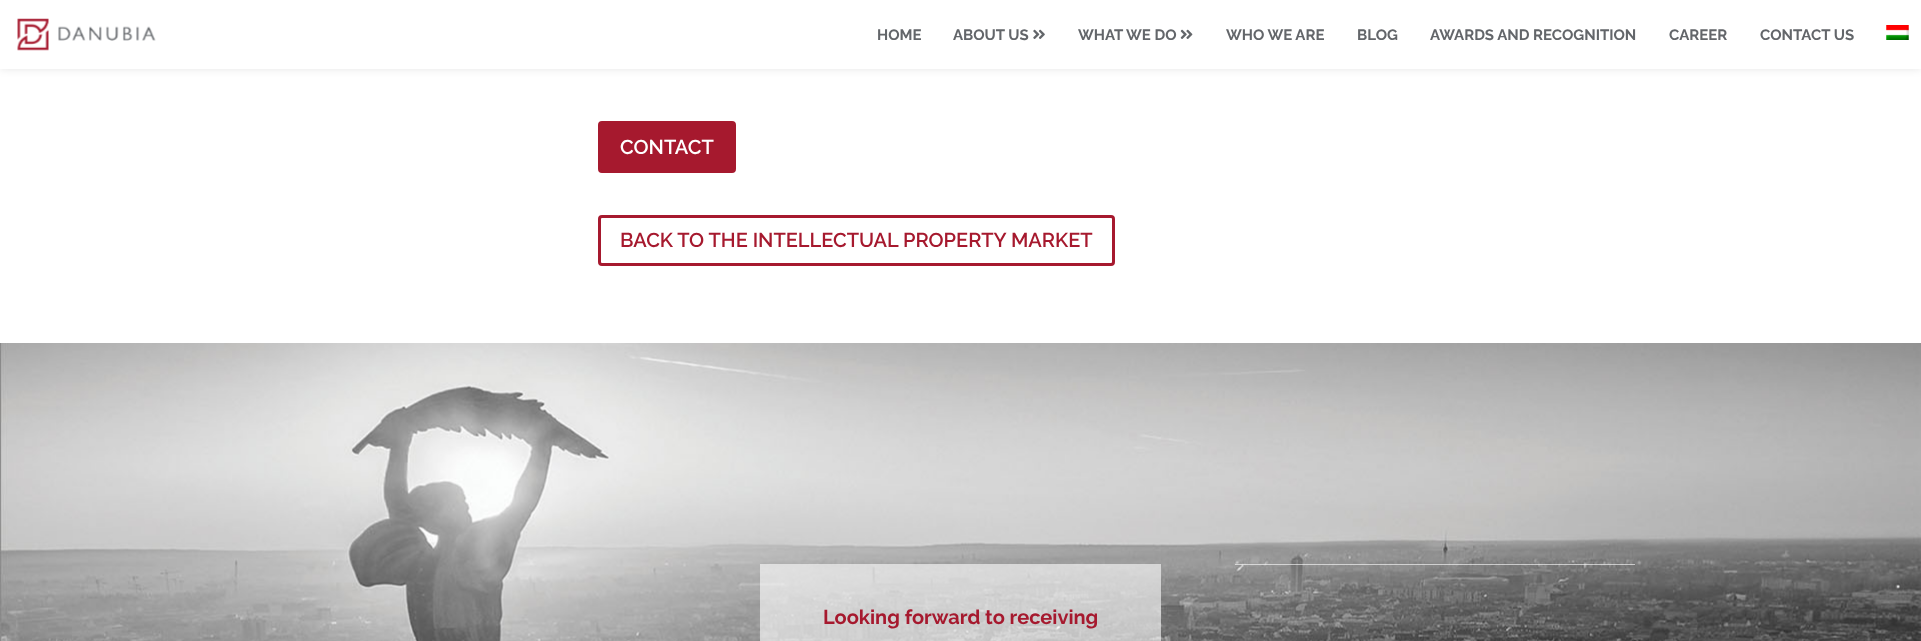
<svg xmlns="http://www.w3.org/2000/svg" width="1921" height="641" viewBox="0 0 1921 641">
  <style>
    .t1 { font: 100 15px Raleway; fill: #63666a; }
    .t2 { font: 100 20px 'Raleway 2'; fill: #fff; }
    .t3 { font: 100 20px 'Raleway 2'; fill: #a6192e; }
    .t4 { font: 100 20px Raleway; fill: #a6192e; }
  </style>
  <rect width="100%" height="100%" fill="#fff"/>
  <rect x="0" y="0" width="1921" height="69" fill="#0000001a" filter="blur(4.5px)"/>
  <rect x="0" y="0" width="1921" height="69" fill="#fff"/>
  <image x="17" y="18" width="139" height="33" href="images/1.png"/>
  <text x="877" y="40" class="t1">HOME</text>
  <text x="953" y="40" class="t1">ABOUT US</text>
  <image x="1033" y="29" width="12" height="10" href="images/2.png"/>
  <text x="1078" y="40" class="t1">WHAT WE DO</text>
  <image x="1180" y="29" width="13" height="10" href="images/3.png"/>
  <text x="1226" y="40" class="t1">WHO WE ARE</text>
  <text x="1357" y="40" class="t1">BLOG</text>
  <text x="1430" y="40" class="t1">AWARDS AND RECOGNITION</text>
  <text x="1669" y="40" class="t1">CAREER</text>
  <text x="1760" y="40" class="t1">CONTACT US</text>
  <image x="1886" y="25" width="23" height="15" href="images/4.png"/>
  <rect x="599.5" y="122.5" width="135" height="49" rx="2.5" fill="#a6192e" stroke="#a6192e" stroke-width="3"/>
  <text x="620" y="154" class="t2">CONTACT</text>
  <rect x="599.5" y="216.5" width="514" height="48" rx="2.5" fill="none" stroke="#a6192e" stroke-width="3"/>
  <text x="620" y="247" class="t3">BACK TO THE INTELLECTUAL PROPERTY MARKET</text>
  <image x="0" y="343" width="1921" height="298" href="images/5.png"/>
  <rect x="1235" y="564" width="400" height="1" fill="#ffffff99"/>
  <rect x="760" y="564" width="401" height="77" fill="#ffffff99"/>
  <text x="823" y="624" class="t4">Looking forward to receiving</text>
</svg>
